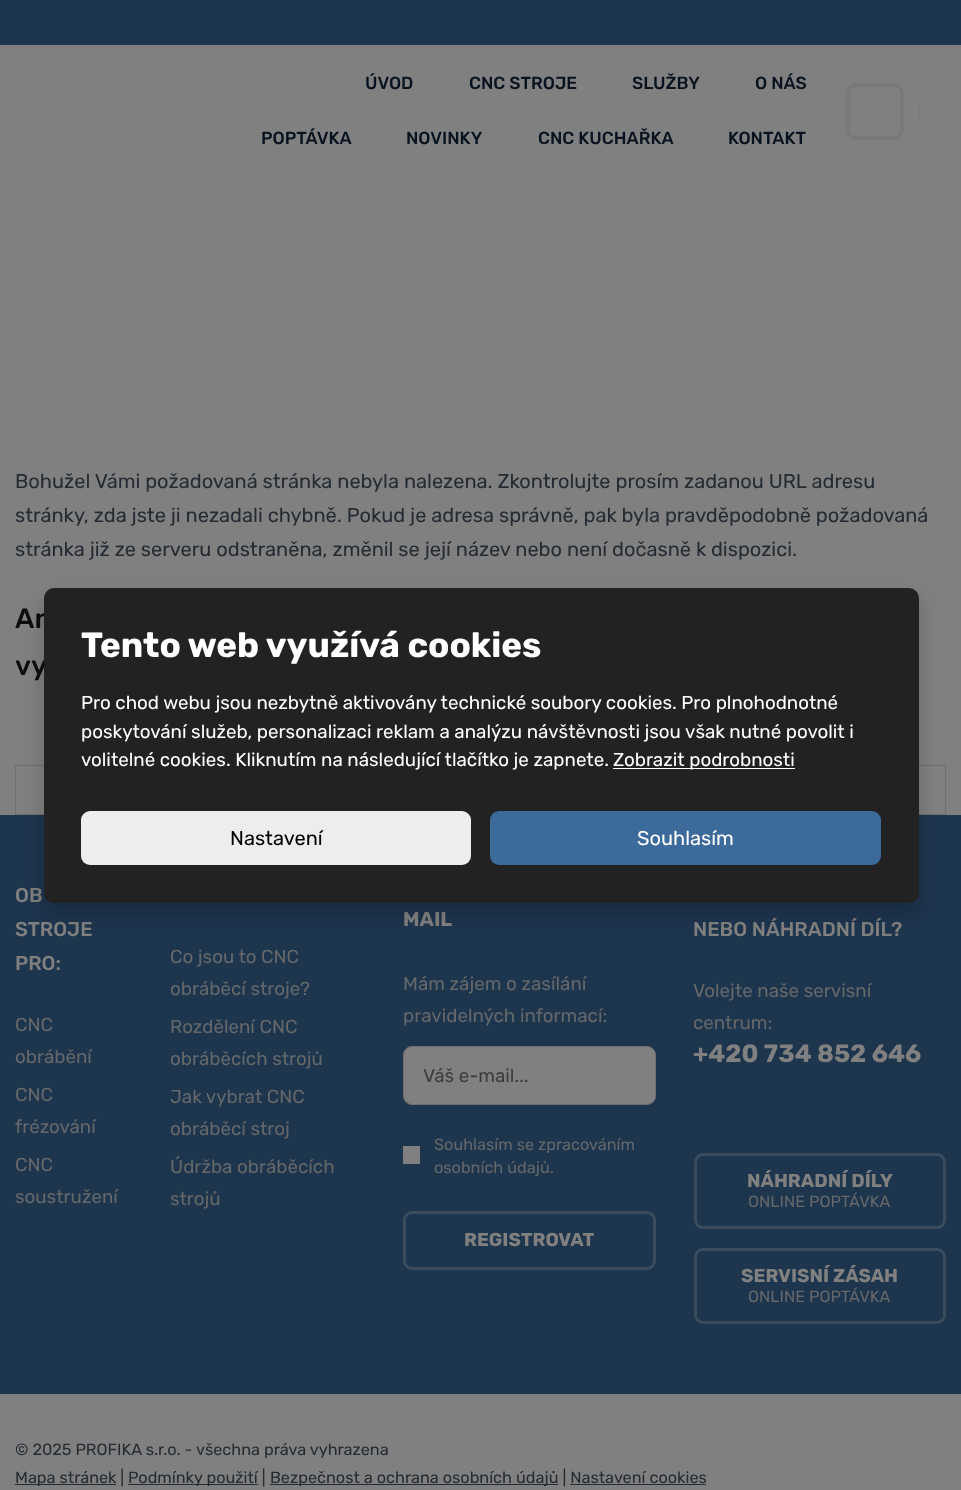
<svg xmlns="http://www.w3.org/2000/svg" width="961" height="1490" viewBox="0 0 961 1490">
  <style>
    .t1 { font: 500 17.5px Rubik; fill: #09131f; }
    .t2 { font: 20px Rubik; fill: #242b32; }
    .t3 { font: 500 28px Rubik; fill: #0a0c0d; }
    .t4 { font: 500 20px Rubik; fill: #808080; }
    .t5 { font: 18.75px Rubik; fill: #64686b; }
    .t6 { font: bold 20px Rubik; fill: #808080; }
    .t7 { font: 18.75px Rubik; fill: #3b3b3b; }
    .t8 { font: 16.25px Rubik; fill: #64686b; }
    .t9 { font: bold 18.75px Rubik; fill: #808080; }
    .t10 { font: bold 25px Rubik; fill: #808080; }
    .t11 { font: 16.25px Rubik; fill: #242b32; }
    .t12 { font: bold 35px Rubik; fill: #fff; }
    .t13 { font: 18.75px Rubik; fill: #fff; }
    .t14 { font: 20px Rubik; fill: #000; }
    .t15 { font: 20px Rubik; fill: #fff; }
  </style>
  <rect width="100%" height="100%" fill="#808080"/>
  <rect x="0" y="0" width="961" height="45" fill="#1e354e"/>
  <text x="365" y="89" class="t1">ÚVOD</text>
  <text x="469" y="89" class="t1">CNC STROJE</text>
  <text x="632" y="89" class="t1">SLUŽBY</text>
  <text x="755" y="89" class="t1">O NÁS</text>
  <text x="261" y="144" class="t1">POPTÁVKA</text>
  <text x="406" y="144" class="t1">NOVINKY</text>
  <text x="538" y="144" class="t1">CNC KUCHAŘKA</text>
  <text x="728" y="144" class="t1">KONTAKT</text>
  <rect x="848" y="85" width="54" height="53" rx="8" fill="none" stroke="#797979" stroke-width="4"/>
  <rect x="919.5" y="103.5" width="26" height="20" fill="none" stroke="#7c7c7c"/>
  <text x="15" y="488" class="t2">Bohužel Vámi požadovaná stránka nebyla nalezena. Zkontrolujte prosím zadanou URL adresu</text>
  <text x="15" y="522" class="t2">stránky, zda jste ji nezadali chybně. Pokud je adresa správně, pak byla pravděpodobně požadovaná</text>
  <text x="15" y="556" class="t2">stránka již ze serveru odstraněna, změnil se její název nebo není dočasně k dispozici.</text>
  <text x="15" y="628" class="t3">An</text>
  <text x="15" y="675" class="t3">vy</text>
  <rect x="15.5" y="765.5" width="930" height="49" fill="none" stroke="#6f6f6f"/>
  <rect x="0" y="815" width="961" height="579" fill="#1e354e"/>
  <text x="15" y="902" class="t4">OB</text>
  <text x="15" y="936" class="t4">STROJE</text>
  <text x="15" y="970" class="t4">PRO:</text>
  <text x="15" y="1031" class="t5">CNC</text>
  <text x="15" y="1063" class="t5">obrábění</text>
  <text x="15" y="1101" class="t5">CNC</text>
  <text x="15" y="1133" class="t5">frézování</text>
  <text x="15" y="1171" class="t5">CNC</text>
  <text x="15" y="1203" class="t5">soustružení</text>
  <text x="170" y="963" class="t5">Co jsou to CNC</text>
  <text x="170" y="995" class="t5">obráběcí stroje?</text>
  <text x="170" y="1033" class="t5">Rozdělení CNC</text>
  <text x="170" y="1065" class="t5">obráběcích strojů</text>
  <text x="170" y="1103" class="t5">Jak vybrat CNC</text>
  <text x="170" y="1135" class="t5">obráběcí stroj</text>
  <text x="170" y="1173" class="t5">Údržba obráběcích</text>
  <text x="170" y="1205" class="t5">strojů</text>
  <text x="403" y="926" class="t6">MAIL</text>
  <text x="403" y="990" class="t5">Mám zájem o zasílání</text>
  <text x="403" y="1022" class="t5">pravidelných informací:</text>
  <rect x="403.5" y="1046.5" width="252" height="58" rx="8.5" fill="#808080" stroke="#6f6f6f"/>
  <text x="423" y="1082" class="t7">Váš e-mail...</text>
  <rect x="403" y="1146" width="17" height="18" fill="#808080"/>
  <text x="434" y="1150" class="t8">Souhlasím se zpracováním</text>
  <text x="434" y="1173" class="t8">osobních údajů.</text>
  <rect x="404.5" y="1212.5" width="250" height="56" rx="7.5" fill="none" stroke="#3b4c5d" stroke-width="3"/>
  <text x="464" y="1246" class="t9">REGISTROVAT</text>
  <text x="693" y="936" class="t4">NEBO NÁHRADNÍ DÍL?</text>
  <text x="693" y="997" class="t5">Volejte naše servisní</text>
  <text x="693" y="1029" class="t5">centrum:</text>
  <text x="693" y="1062" class="t10">+420 734 852 646</text>
  <rect x="695.5" y="1154.5" width="249" height="73" rx="7.5" fill="none" stroke="#3b4c5d" stroke-width="3"/>
  <text x="747" y="1187" class="t9">NÁHRADNÍ DÍLY</text>
  <text x="748" y="1207" class="t8">ONLINE POPTÁVKA</text>
  <rect x="695.5" y="1249.5" width="249" height="73" rx="7.5" fill="none" stroke="#3b4c5d" stroke-width="3"/>
  <text x="741" y="1282" class="t9">SERVISNÍ ZÁSAH</text>
  <text x="748" y="1302" class="t8">ONLINE POPTÁVKA</text>
  <text x="15" y="1455" class="t11">© 2025 PROFIKA s.r.o. - všechna práva vyhrazena</text>
  <rect x="15" y="1484" width="101" height="1" fill="#242b32"/>
  <text x="15" y="1483" class="t11">Mapa stránek |</text>
  <rect x="128" y="1484" width="130" height="1" fill="#242b32"/>
  <text x="128" y="1483" class="t11">Podmínky použití |</text>
  <rect x="270" y="1484" width="288" height="1" fill="#242b32"/>
  <text x="270" y="1483" class="t11">Bezpečnost a ochrana osobních údajů | Nastavení cookies</text>
  <rect x="570" y="1484" width="136" height="1" fill="#242b32"/>
  <rect x="44" y="598" width="875" height="315" rx="10" fill="#00000033" filter="blur(10px)"/>
  <rect x="44" y="588" width="875" height="315" rx="10" fill="#222"/>
  <text x="81" y="657" class="t12">Tento web využívá cookies</text>
  <text x="81" y="709" class="t13">Pro chod webu jsou nezbytně aktivovány technické soubory cookies. Pro plnohodnotné</text>
  <text x="81" y="738" class="t13">poskytování služeb, personalizaci reklam a analýzu návštěvnosti jsou však nutné povolit i</text>
  <text x="81" y="766" class="t13">volitelné cookies. Kliknutím na následující tlačítko je zapnete.</text>
  <rect x="613" y="768" width="182" height="1" fill="#fff"/>
  <text x="613" y="766" class="t13">Zobrazit podrobnosti</text>
  <rect x="81" y="811" width="390" height="54" rx="9" fill="#ededed"/>
  <text x="230" y="845" class="t14">Nastavení</text>
  <rect x="490" y="811" width="391" height="54" rx="9" fill="#3b6a9b"/>
  <text x="637" y="845" class="t15">Souhlasím</text>
</svg>
